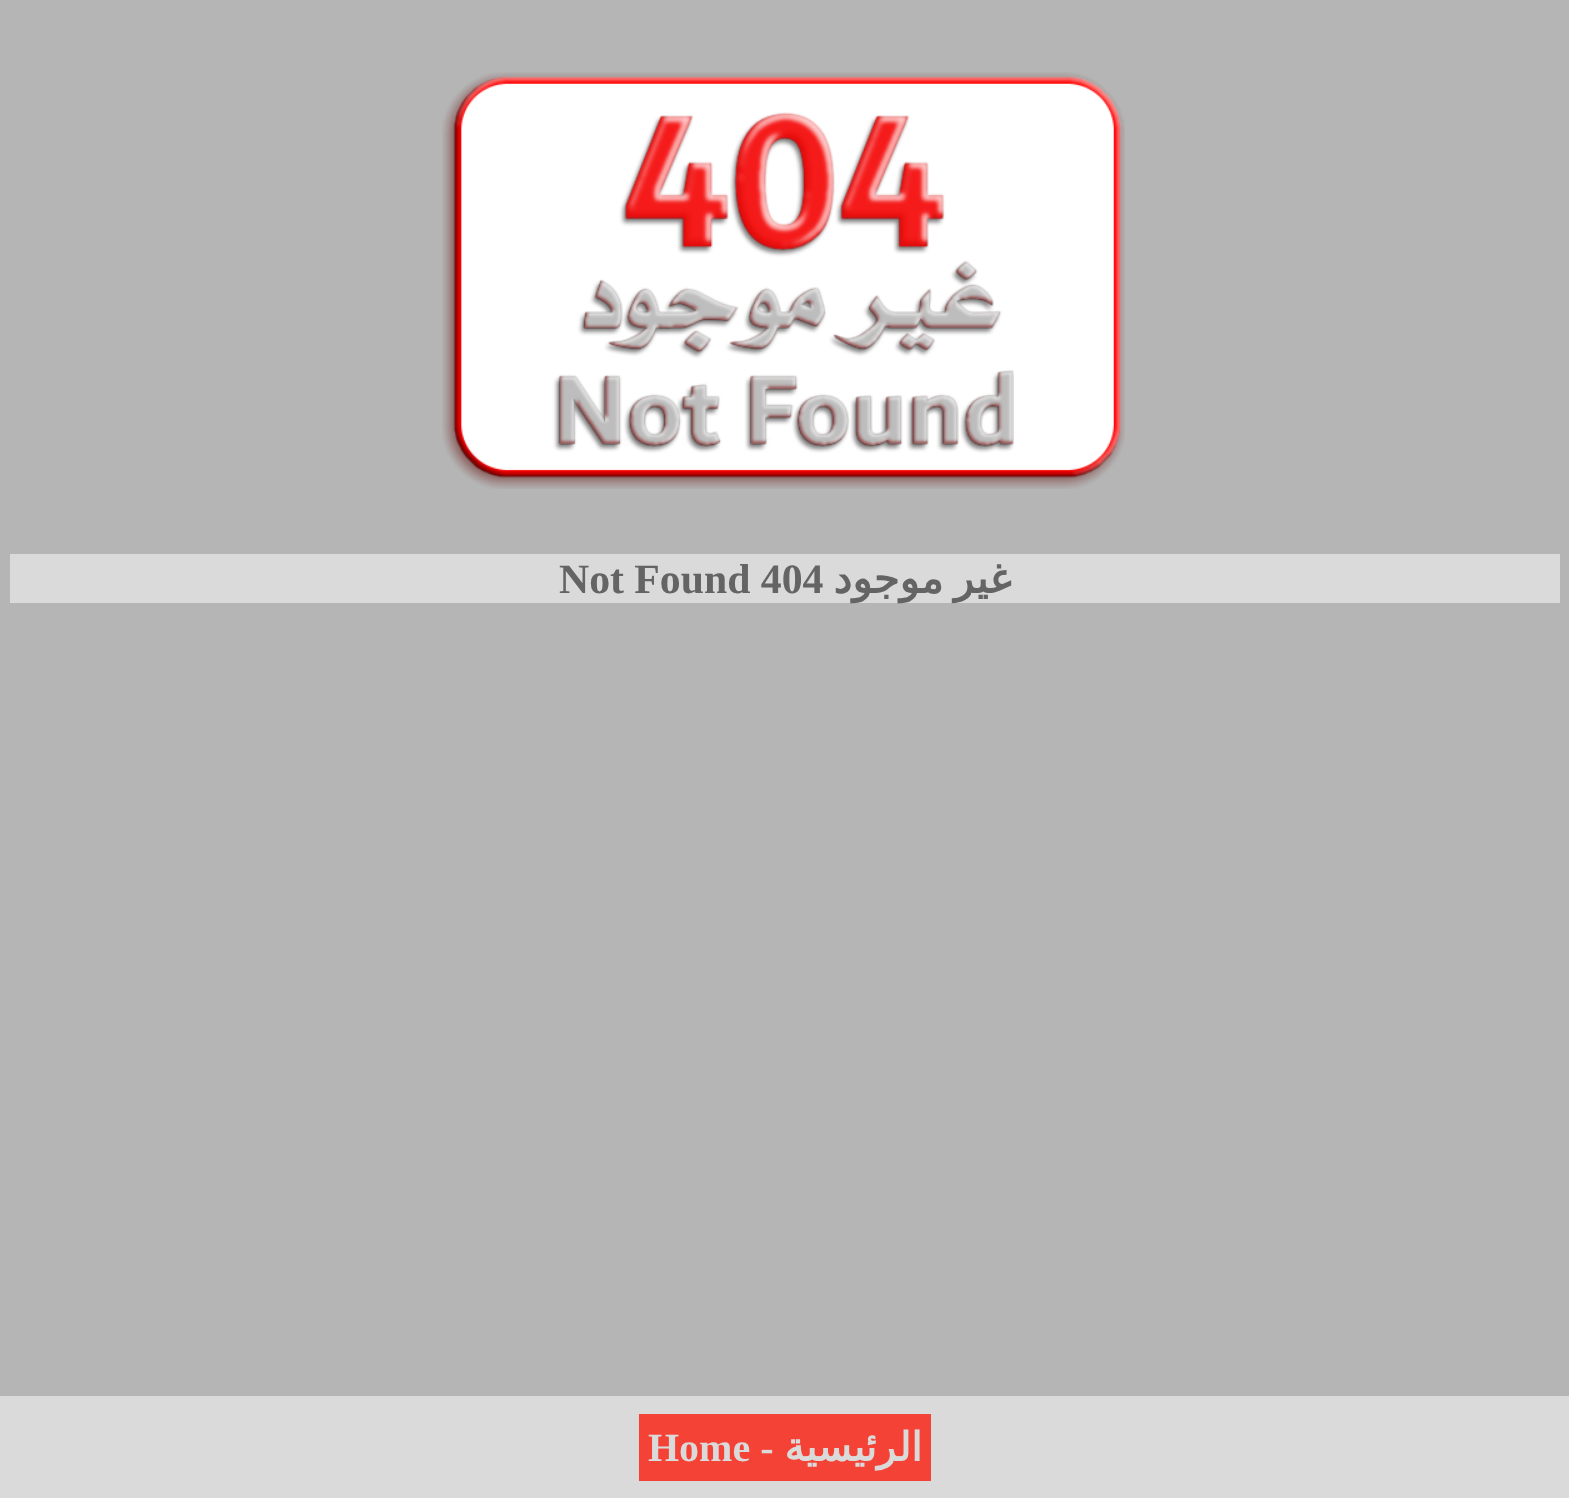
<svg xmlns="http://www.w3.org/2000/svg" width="1569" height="1498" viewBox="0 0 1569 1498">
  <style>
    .t1 { font: bold 41.75px Liberation Serif; fill: #646464; }
    .t2 { font: bold 41.75px DejaVu Sans; direction: rtl; fill: #646464; }
    .t3 { font: bold 40px Liberation Serif; fill: #dadada; }
    .t4 { font: bold 40px DejaVu Sans; direction: rtl; fill: #dadada; }
  </style>
  <rect width="100%" height="100%" fill="#b5b5b5"/>
  <image x="442" y="72" width="683" height="417" href="images/1.png"/>
  <rect x="10" y="554" width="1550" height="49" fill="#dadada"/>
  <text x="559" y="593" class="t1">Not Found 404</text>
  <text x="1011" y="593" word-spacing="-3" class="t2">غير موجود</text>
  <rect x="0" y="1396" width="1569" height="102" fill="#dadada"/>
  <rect x="639" y="1414" width="292" height="67" fill="#f44336"/>
  <text x="648" y="1461" class="t3">Home -</text>
  <text x="922" y="1461" class="t4">الرئيسية</text>
</svg>
